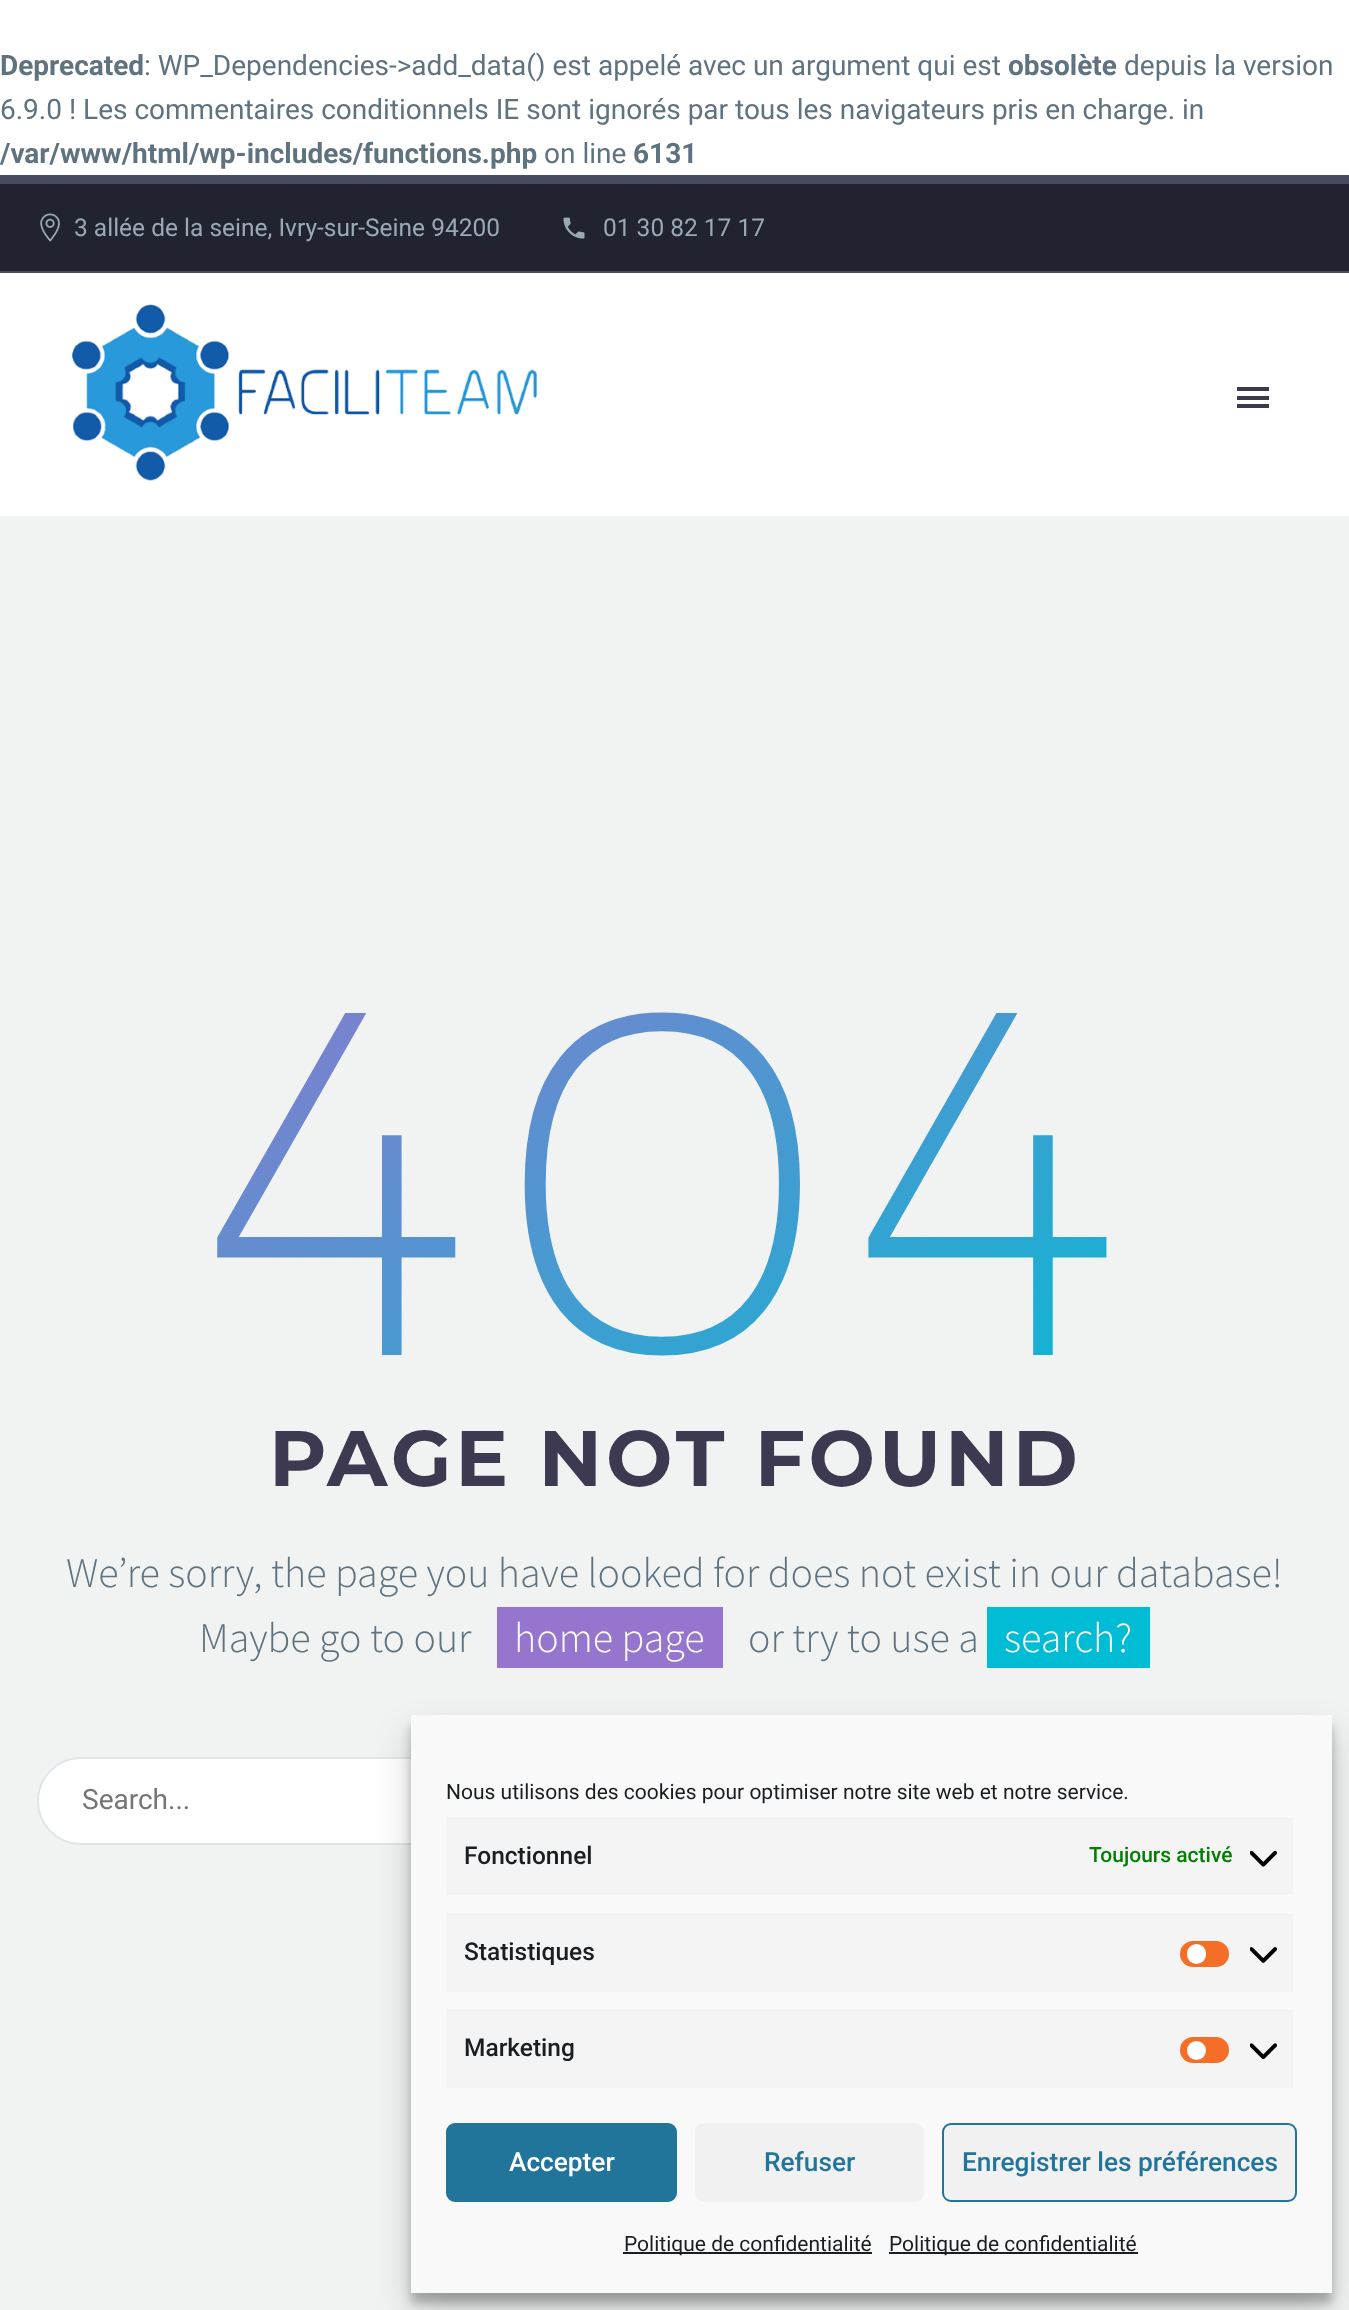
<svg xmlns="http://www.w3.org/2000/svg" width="1349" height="2310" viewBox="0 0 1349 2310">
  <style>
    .t1 { font: bold 28px Roboto; fill: #5f727f; }
    .t2 { font: 28px Roboto; fill: #5f727f; }
    .t3 { font: 24.5px Roboto; fill: #99a9b5; }
    .t4 { font: 200 489px Montserrat; letter-spacing: 24.5px; fill: url(#g1); }
    .t5 { font: bold 78.75px Montserrat; letter-spacing: 4px; fill: #3c3950; }
    .t6 { font: 300 42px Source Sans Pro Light; fill: #5f727f; }
    .t7 { font: 300 42px Source Sans Pro Light; fill: #fff; }
    .t8 { font: 28px Roboto; fill: #757575; }
    .t9 { font: 21px Roboto; fill: #191e23; }
    .t10 { font: 500 24.5px Roboto; fill: #191e23; }
    .t11 { font: 500 21px Roboto; fill: #008000; }
    .t12 { font: 500 26.25px Roboto; fill: #fff; }
    .t13 { font: 500 26.25px Roboto; fill: #21759b; }
  </style>
  <defs>
    <linearGradient id="g1" gradientUnits="userSpaceOnUse" x1="201" y1="884" x2="719" y2="1728"><stop offset="0" stop-color="#9575cd"/><stop offset="1" stop-color="#00bcd4"/></linearGradient>
  </defs>
  <rect width="100%" height="100%" fill="#fff"/>
  <text x="0" y="75" class="t1">Deprecated</text>
  <text x="144" y="75" class="t2">: WP_Dependencies-&gt;add_data() est appelé avec un argument qui est</text>
  <text x="1008" y="75" class="t1">obsolète</text>
  <text x="1124" y="75" class="t2">depuis la version</text>
  <text x="0" y="119" class="t2">6.9.0 ! Les commentaires conditionnels IE sont ignorés par tous les navigateurs pris en charge. in</text>
  <text x="0" y="163" class="t1">/var/www/html/wp-includes/functions.php</text>
  <text x="544" y="163" class="t2">on line</text>
  <text x="633" y="163" class="t1">6131</text>
  <rect x="0" y="184" width="1349" height="87" fill="#212331"/>
  <rect x="0" y="175" width="1349" height="9" fill="#474b61"/>
  <rect x="0" y="271" width="1349" height="2" fill="#474b61"/>
  <image x="40" y="213" width="20" height="29" href="images/1.png"/>
  <text x="74" y="236" class="t3">3 allée de la seine, Ivry-sur-Seine 94200</text>
  <image x="563" y="217" width="22" height="22" href="images/2.png"/>
  <text x="603" y="236" class="t3">01 30 82 17 17</text>
  <image x="71" y="304" width="467" height="177" href="images/3.png"/>
  <rect x="1237" y="387" width="32" height="4" fill="#3c3950"/>
  <rect x="1237" y="396" width="32" height="4" fill="#3c3950"/>
  <rect x="1237" y="404" width="32" height="4" fill="#3c3950"/>
  <rect x="0" y="516" width="1349" height="1794" fill="#f0f3f2"/>
  <text x="201" y="1355" class="t4">404</text>
  <text x="269" y="1486" class="t5">PAGE NOT FOUND</text>
  <text x="66" y="1587" class="t6">We’re sorry, the page you have looked for does not exist in our database!</text>
  <text x="199" y="1652" class="t6">Maybe go to our</text>
  <rect x="497" y="1607" width="226" height="61" fill="#9575cd"/>
  <text x="514" y="1652" class="t7">home page</text>
  <text x="748" y="1652" class="t6">or try to use a</text>
  <rect x="987" y="1607" width="163" height="61" fill="#00bcd4"/>
  <text x="1004" y="1652" class="t7">search?</text>
  <rect x="38" y="1758" width="1274" height="86" rx="43" fill="#fff" stroke="#dfe5e8" stroke-width="2"/>
  <text x="82" y="1809" class="t8">Search...</text>
  <rect x="411" y="1726" width="921" height="577" fill="#0000003b" filter="blur(5px)"/>
  <rect x="411" y="1733" width="921" height="577" fill="#00000030" filter="blur(17.5px)"/>
  <rect x="411" y="1715" width="921" height="578" fill="#f9f9f9"/>
  <text x="446" y="1799" class="t9">Nous utilisons des cookies pour optimiser notre site web et notre service.</text>
  <rect x="446" y="1817" width="847" height="78" fill="#f4f4f4"/>
  <text x="464" y="1864" class="t10">Fonctionnel</text>
  <text x="1089" y="1862" class="t11">Toujours activé</text>
  <image x="1250" y="1850" width="27" height="17" href="images/4.png"/>
  <rect x="446" y="1913" width="847" height="79" fill="#f4f4f4"/>
  <text x="464" y="1960" class="t10">Statistiques</text>
  <rect x="1180" y="1941" width="49" height="26" rx="13" fill="#f56e28"/>
  <rect x="1187" y="1944" width="19" height="20" rx="9.5" fill="#fff"/>
  <image x="1250" y="1947" width="27" height="16" href="images/5.png"/>
  <rect x="446" y="2009" width="847" height="79" fill="#f4f4f4"/>
  <text x="464" y="2056" class="t10">Marketing</text>
  <rect x="1180" y="2037" width="49" height="26" rx="13" fill="#f56e28"/>
  <circle cx="1196.5" cy="2050.5" r="9.5" fill="#fff"/>
  <image x="1250" y="2043" width="27" height="17" href="images/6.png"/>
  <rect x="447" y="2124" width="229" height="77" rx="8" fill="#21759b" stroke="#21759b" stroke-width="2"/>
  <text x="509" y="2171" class="t12">Accepter</text>
  <rect x="695" y="2123" width="229" height="79" rx="9" fill="#f1f1f1"/>
  <text x="764" y="2171" class="t13">Refuser</text>
  <rect x="943" y="2124" width="353" height="77" rx="8" fill="#f1f1f1" stroke="#21759b" stroke-width="2"/>
  <text x="962" y="2171" class="t13">Enregistrer les préférences</text>
  <rect x="623" y="2252" width="249" height="2" fill="#191e23"/>
  <text x="624" y="2251" class="t9">Politique de confidentialité</text>
  <rect x="889" y="2252" width="249" height="2" fill="#191e23"/>
  <text x="889" y="2251" class="t9">Politique de confidentialité</text>
</svg>
